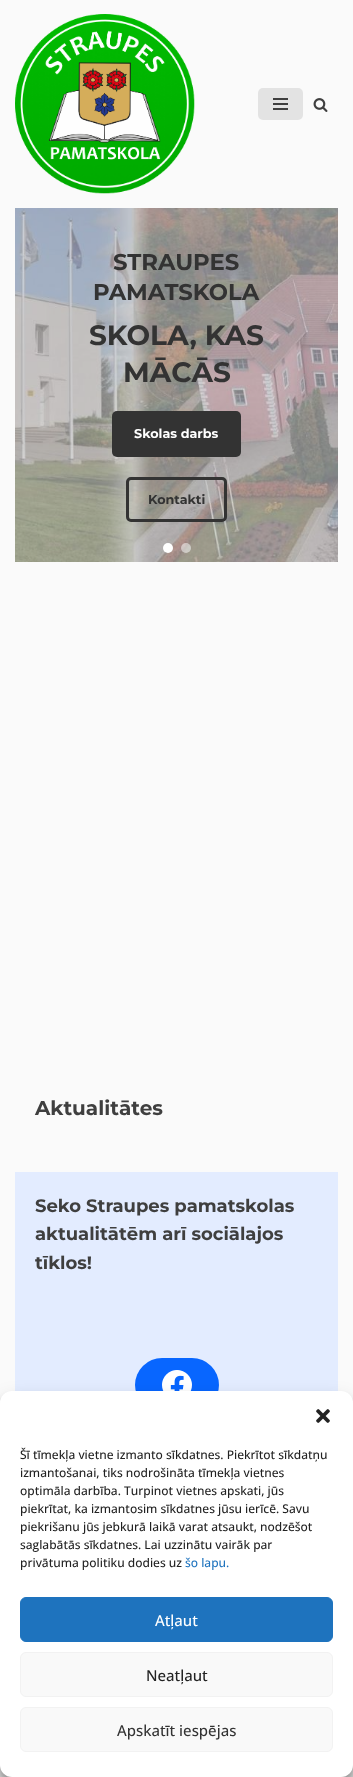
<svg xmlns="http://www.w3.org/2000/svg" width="353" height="1777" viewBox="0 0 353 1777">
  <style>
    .t1 { font: bold 22.75px Montserrat; fill: #333; }
    .t2 { font: bold 28px Montserrat; fill: #333; }
    .t3 { font: bold 12.75px Montserrat; fill: #fff; }
    .t4 { font: bold 12.75px Montserrat; fill: #333; }
    .t5 { font: bold 20px Montserrat; fill: #3f3f3f; }
    .t6 { font: bold 18px Montserrat; fill: #3f3f3f; }
    .t7 { font: 500 12px Open Sans; fill: #222; }
    .t8 { font: 500 12px Open Sans; fill: #1e73be; }
    .t9 { font: 500 15px Open Sans; fill: #fff; }
    .t10 { font: 500 15px Open Sans; fill: #222; }
    .t11 { font: 500 15px Open Sans; fill: #333; }
  </style>
  <rect width="100%" height="100%" fill="#fafafa"/>
  <image x="15" y="14" width="180" height="180" href="images/1.png"/>
  <rect x="258" y="88" width="45" height="32" rx="5" fill="#e3e3e3"/>
  <rect x="273" y="98" width="15" height="2" fill="#3f3f3f"/>
  <rect x="273" y="103" width="15" height="2" fill="#3f3f3f"/>
  <rect x="273" y="108" width="15" height="2" fill="#3f3f3f"/>
  <image x="313" y="98" width="15" height="14" href="images/2.png"/>
  <image x="15" y="208" width="323" height="354" href="images/3.png"/>
  <text x="113" y="270" class="t1">STRAUPES</text>
  <text x="93" y="300" class="t1">PAMATSKOLA</text>
  <text x="89" y="345" class="t2">SKOLA, KAS</text>
  <text x="123" y="382" class="t2">MĀCĀS</text>
  <rect x="112" y="411" width="129" height="46" rx="5" fill="#333"/>
  <text x="134" y="438" class="t3">Skolas darbs</text>
  <rect x="127.5" y="478.5" width="98" height="42" rx="3.5" fill="none" stroke="#333" stroke-width="3"/>
  <text x="148" y="504" class="t4">Kontakti</text>
  <circle cx="168" cy="548" r="5" fill="#fff"/>
  <circle cx="186" cy="548" r="5" fill="#ffffff80"/>
  <text x="35" y="1115" class="t5">Aktualitātes</text>
  <rect x="15" y="1172" width="323" height="219" fill="#e3ecff"/>
  <text x="35" y="1212" class="t6">Seko Straupes pamatskolas</text>
  <text x="35" y="1240" class="t6">aktualitātēm arī sociālajos</text>
  <text x="35" y="1269" class="t6">tīklos!</text>
  <rect x="135" y="1358" width="84" height="54" rx="27" fill="#0866ff"/>
  <image x="162" y="1370" width="30" height="21" href="images/4.png"/>
  <rect x="0" y="1765" width="353" height="12" fill="#e3e3e3"/>
  <rect x="0" y="1397" width="353" height="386" rx="12" fill="#0000003b" filter="blur(3px)"/>
  <rect x="0" y="1401" width="353" height="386" rx="12" fill="#00000030" filter="blur(10px)"/>
  <rect x="0" y="1391" width="353" height="386" rx="12" fill="#fff"/>
  <image x="316" y="1409" width="14" height="14" href="images/5.png"/>
  <text x="20" y="1459" class="t7">Šī tīmekļa vietne izmanto sīkdatnes. Piekrītot sīkdatņu</text>
  <text x="20" y="1477" class="t7">izmantošanai, tiks nodrošināta tīmekļa vietnes</text>
  <text x="20" y="1495" class="t7">optimāla darbība. Turpinot vietnes apskati, jūs</text>
  <text x="20" y="1513" class="t7">piekrītat, ka izmantosim sīkdatnes jūsu ierīcē. Savu</text>
  <text x="20" y="1531" class="t7">piekrišanu jūs jebkurā laikā varat atsaukt, nodzēšot</text>
  <text x="20" y="1549" class="t7">saglabātās sīkdatnes. Lai uzzinātu vairāk par</text>
  <text x="20" y="1567" class="t7">privātuma politiku dodies uz</text>
  <text x="185" y="1567" class="t8">šo lapu.</text>
  <rect x="20.5" y="1597.5" width="312" height="44" rx="5.5" fill="#1e73be" stroke="#1e73be"/>
  <text x="155" y="1626" class="t9">Atļaut</text>
  <rect x="20.5" y="1652.5" width="312" height="44" rx="5.5" fill="#f9f9f9" stroke="#f2f2f2"/>
  <text x="146" y="1681" class="t10">Neatļaut</text>
  <rect x="20.5" y="1707.5" width="312" height="44" rx="5.5" fill="#f9f9f9" stroke="#f2f2f2"/>
  <text x="117" y="1736" class="t11">Apskatīt iespējas</text>
</svg>
